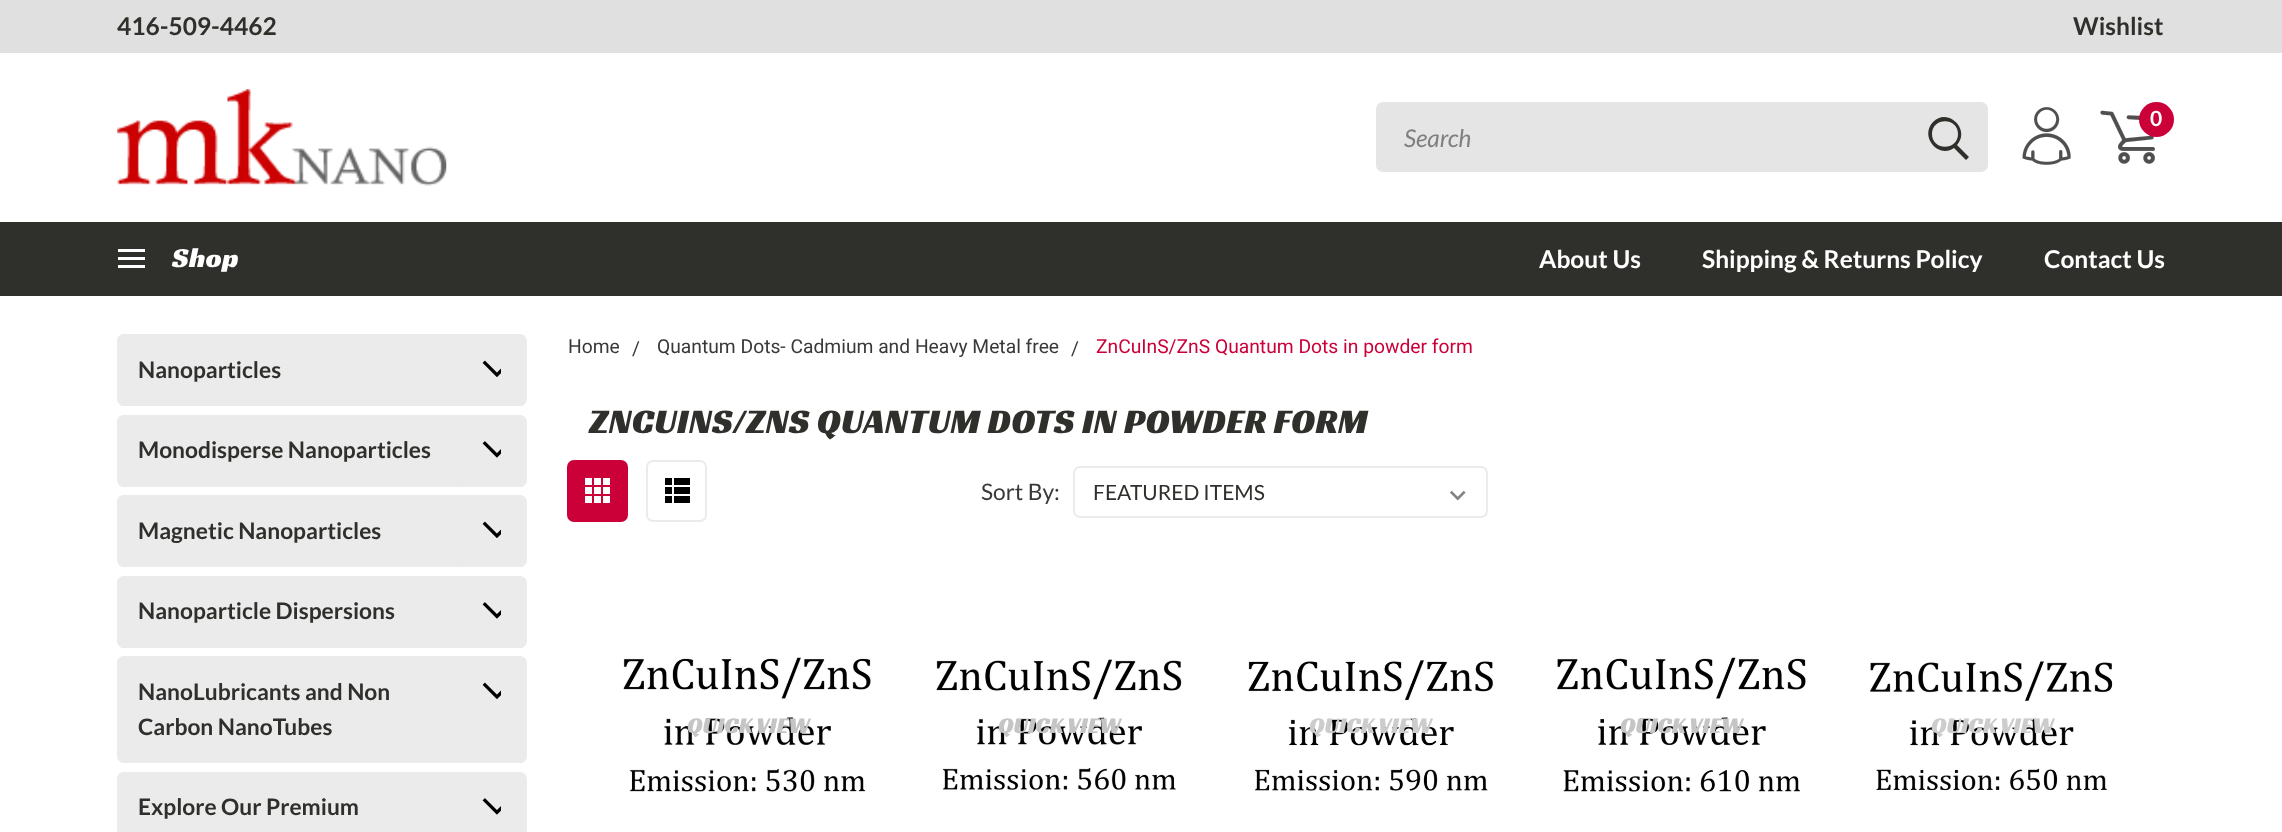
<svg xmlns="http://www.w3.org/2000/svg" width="2282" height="832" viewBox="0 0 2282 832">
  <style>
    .t1 { font: bold 24.5px Lato; fill: #2f2f2b; }
    .t2 { font: bold 21px Lato; fill: #fff; }
    .t3 { font: italic 24.5px Lato; fill: #7f7f7f; }
    .t4 { font: 28px Racing Sans One; letter-spacing: 0.45px; fill: #fff; }
    .t5 { font: bold 24.5px Lato; fill: #fff; }
    .t6 { font: bold 22.75px Lato; fill: #2f2f2b; }
    .t7 { font: 19.25px Roboto; fill: #393939; }
    .t8 { font: 19.25px Roboto; fill: #cb0039; }
    .t9 { font: 35px Racing Sans One; letter-spacing: 0.45px; fill: #2f2f2b; }
    .t10 { font: 22.75px Lato; fill: #393939; }
    .t11 { font: 21px Lato; fill: #2f2f2b; }
    .t12 { font: 22.75px Racing Sans One; fill: #c5c5c5; }
    .t13 { font: 22.75px Racing Sans One; fill: #ccc; }
  </style>
  <rect width="100%" height="100%" fill="#fff"/>
  <rect x="0" y="0" width="2282" height="53" fill="#e0e0e0"/>
  <text x="117" y="35" class="t1">416-509-4462</text>
  <text x="2073" y="35" class="t1">Wishlist</text>
  <image x="117" y="89" width="330" height="97" href="images/1.png"/>
  <image x="2022" y="107" width="49" height="58" href="images/2.png"/>
  <image x="2100" y="110" width="55" height="54" href="images/3.png"/>
  <circle cx="2156.5" cy="119.5" r="17.5" fill="#cb0039"/>
  <text x="2150" y="126" class="t2">0</text>
  <rect x="1377" y="103" width="610" height="68" rx="6" fill="#e5e5e5" stroke="#e5e5e5" stroke-width="2"/>
  <text x="1404" y="147" class="t3">Search</text>
  <path d="M1969 157L1957 145C1971 130 1948 107 1933 122C1919 137 1939 159 1954 148L1966 160ZM1932 134C1932 117 1958 117 1958 134C1958 151 1932 151 1932 134Z" fill="#2f2f2b"/>
  <rect x="0" y="222" width="2282" height="74" fill="#2f2f2b"/>
  <rect x="118" y="249" width="27" height="3" fill="#fff"/>
  <rect x="118" y="257" width="27" height="3" fill="#fff"/>
  <rect x="118" y="265" width="27" height="3" fill="#fff"/>
  <text x="172" y="267" class="t4">Shop</text>
  <text x="1539" y="268" class="t5">About Us</text>
  <text x="1702" y="268" class="t5">Shipping &amp; Returns Policy</text>
  <text x="2044" y="268" class="t5">Contact Us</text>
  <rect x="117" y="334" width="410" height="72" rx="7" fill="#ebebeb"/>
  <rect x="121" y="405" width="402" height="1" fill="#ebebeb"/>
  <rect x="117" y="334" width="349" height="70" rx="7" fill="#ebebeb"/>
  <text x="138" y="378" class="t6">Nanoparticles</text>
  <image x="482" y="360" width="19" height="17" href="images/4.png"/>
  <rect x="117" y="415" width="410" height="72" rx="7" fill="#ebebeb"/>
  <rect x="121" y="486" width="402" height="1" fill="#ebebeb"/>
  <rect x="117" y="415" width="349" height="70" rx="7" fill="#ebebeb"/>
  <text x="138" y="458" class="t6">Monodisperse Nanoparticles</text>
  <image x="482" y="441" width="19" height="17" href="images/5.png"/>
  <rect x="117" y="495" width="410" height="72" rx="7" fill="#ebebeb"/>
  <rect x="121" y="566" width="402" height="1" fill="#ebebeb"/>
  <rect x="117" y="495" width="349" height="70" rx="7" fill="#ebebeb"/>
  <text x="138" y="539" class="t6">Magnetic Nanoparticles</text>
  <image x="482" y="521" width="19" height="17" href="images/4.png"/>
  <rect x="117" y="576" width="410" height="72" rx="7" fill="#ebebeb"/>
  <rect x="121" y="647" width="402" height="1" fill="#ebebeb"/>
  <rect x="117" y="576" width="349" height="70" rx="7" fill="#ebebeb"/>
  <text x="138" y="619" class="t6">Nanoparticle Dispersions</text>
  <image x="482" y="602" width="19" height="17" href="images/5.png"/>
  <rect x="117" y="656" width="410" height="107" rx="7" fill="#ebebeb"/>
  <rect x="121" y="762" width="402" height="1" fill="#ebebeb"/>
  <rect x="117" y="656" width="349" height="105" rx="7" fill="#ebebeb"/>
  <text x="138" y="700" class="t6">NanoLubricants and Non</text>
  <text x="138" y="735" class="t6">Carbon NanoTubes</text>
  <image x="482" y="682" width="19" height="17" href="images/4.png"/>
  <rect x="117" y="772" width="410" height="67" rx="7" fill="#ebebeb"/>
  <rect x="117" y="772" width="349" height="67" rx="7" fill="#ebebeb"/>
  <text x="138" y="815" class="t6">Explore Our Premium</text>
  <image x="482" y="798" width="19" height="17" href="images/5.png"/>
  <text x="568" y="353" class="t7">Home</text>
  <text x="632" y="355" class="t7">/</text>
  <text x="657" y="353" class="t7">Quantum Dots- Cadmium and Heavy Metal free</text>
  <text x="1071" y="355" class="t7">/</text>
  <text x="1096" y="353" class="t8">ZnCuInS/ZnS Quantum Dots in powder form</text>
  <text x="589" y="433" class="t9">ZNCUINS/ZNS QUANTUM DOTS IN POWDER FORM</text>
  <rect x="568" y="461" width="59" height="60" rx="6" fill="#cb0039" stroke="#cb0039" stroke-width="2"/>
  <image x="585" y="478" width="25" height="25" href="images/6.png"/>
  <rect x="647" y="461" width="59" height="60" rx="6" fill="none" stroke="#ebebeb" stroke-width="2"/>
  <image x="665" y="478" width="25" height="25" href="images/7.png"/>
  <text x="981" y="500" class="t10">Sort By:</text>
  <image x="1450" y="490" width="16" height="11" href="images/8.png"/>
  <rect x="1074" y="467" width="413" height="50" rx="6" fill="none" stroke="#ebebeb" stroke-width="2"/>
  <text x="1093" y="500" class="t11">FEATURED ITEMS</text>
  <image x="623" y="657" width="248" height="135" href="images/9.png"/>
  <text x="687" y="733" class="t12">QUICK VIEW</text>
  <image x="936" y="659" width="246" height="131" href="images/10.png"/>
  <text x="998" y="733" class="t12">QUICK VIEW</text>
  <image x="1248" y="660" width="245" height="131" href="images/11.png"/>
  <text x="1309" y="733" class="t13">QUICK VIEW</text>
  <image x="1557" y="657" width="249" height="135" href="images/12.png"/>
  <text x="1620" y="733" class="t12">QUICK VIEW</text>
  <image x="1870" y="661" width="243" height="130" href="images/13.png"/>
  <text x="1931" y="733" class="t13">QUICK VIEW</text>
</svg>
